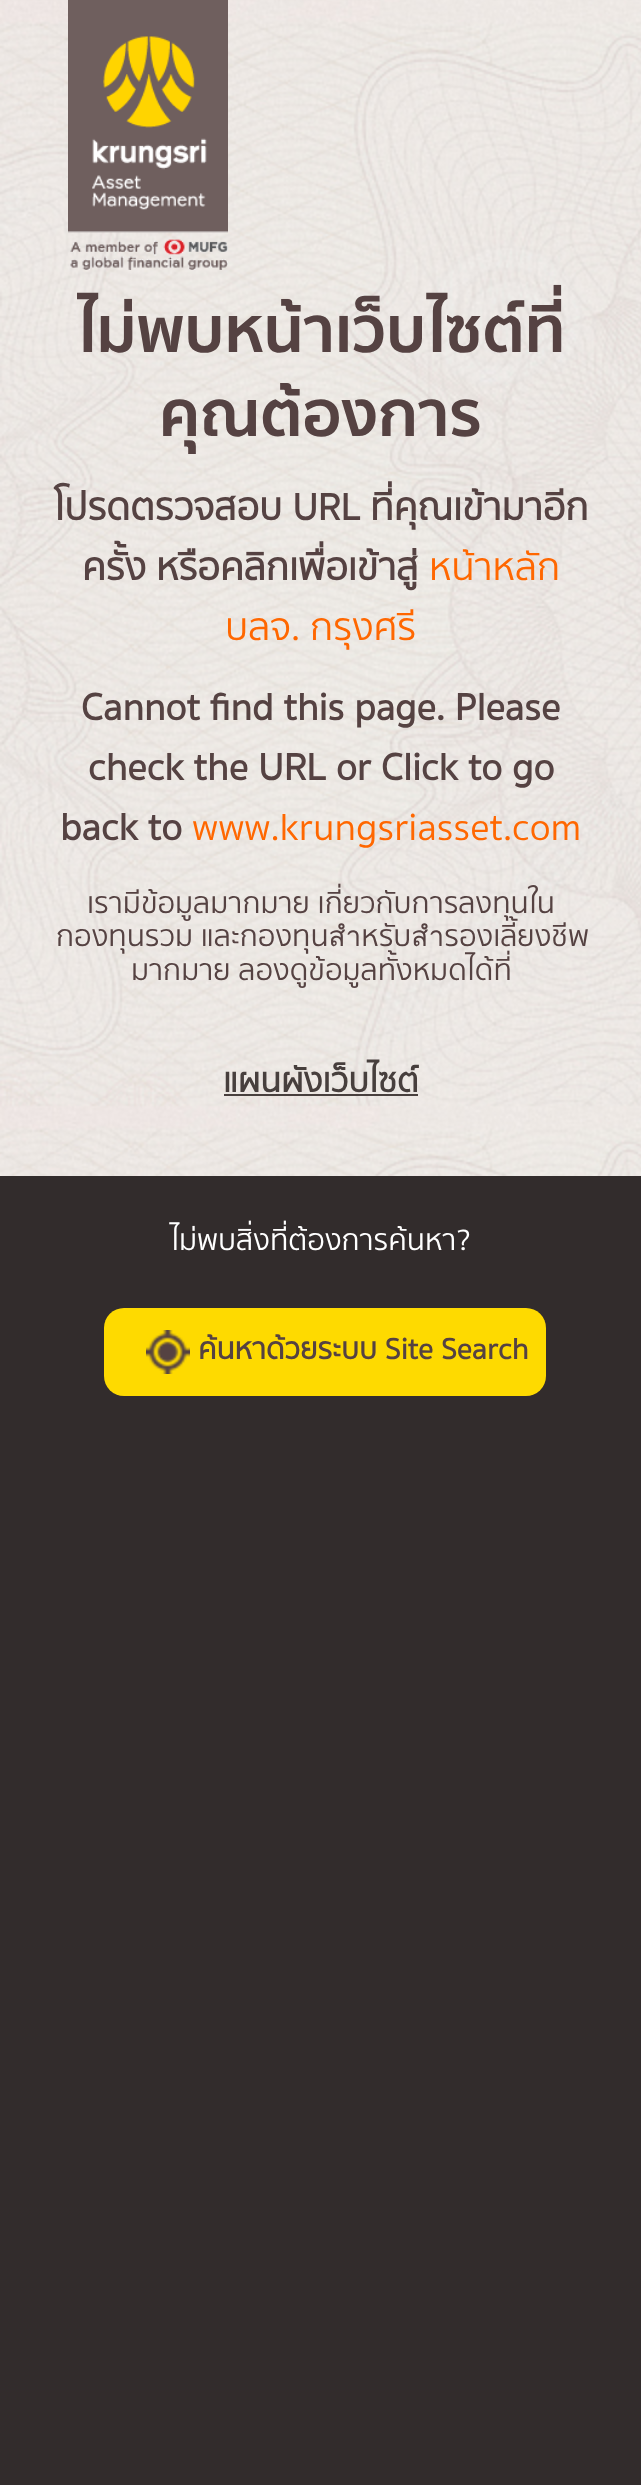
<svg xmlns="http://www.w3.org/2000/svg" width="641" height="2485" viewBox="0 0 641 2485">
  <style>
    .t1 { font: bold 60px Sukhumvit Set; fill: #554242; }
    .t2 { font: bold 36px 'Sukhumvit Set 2'; fill: #554242; }
    .t3 { font: 36px Sukhumvit Set; fill: #ff6700; }
    .t4 { font: 28px Sukhumvit Set; fill: #554242; }
    .t5 { font: bold 32px 'Sukhumvit Set 2'; fill: #473f3d; }
    .t6 { font: 28px Sukhumvit Set; fill: #fff; }
    .t7 { font: bold 28px 'Sukhumvit Set 2'; fill: #554242; }
  </style>
  <rect width="100%" height="100%" fill="#322c2c"/>
  <image x="0" y="0" width="641" height="1176" href="images/1.png"/>
  <image x="68" y="0" width="160" height="270" href="images/2.png"/>
  <text x="77" y="352" class="t1">ไม่พบหน้าเว็บไซต์ที่</text>
  <text x="159" y="436" class="t1">คุณต้องการ</text>
  <text x="54" y="520" class="t2">โปรดตรวจสอบ URL ที่คุณเข้ามาอีก</text>
  <text x="82" y="580" class="t2">ครั้ง หรือคลิกเพื่อเข้าสู่</text>
  <text x="429" y="580" class="t3">หน้าหลัก</text>
  <text x="225" y="640" class="t3">บลจ. กรุงศรี</text>
  <text x="81" y="720" class="t2">Cannot find this page. Please</text>
  <text x="88" y="780" class="t2">check the URL or Click to go</text>
  <text x="60" y="840" class="t2">back to</text>
  <text x="192" y="840" class="t3">www.krungsriasset.com</text>
  <text x="87" y="913" class="t4">เรามีข้อมูลมากมาย เกี่ยวกับการลงทุนใน</text>
  <text x="56" y="946" class="t4">กองทุนรวม และกองทุนสำหรับสำรองเลี้ยงชีพ</text>
  <text x="131" y="980" class="t4">มากมาย ลองดูข้อมูลทั้งหมดได้ที่</text>
  <text x="223" y="1092" class="t5">แผนผังเว็บไซต์</text>
  <rect x="224" y="1094" width="194" height="2" fill="#473f3d"/>
  <text x="171" y="1250" class="t6">ไม่พบสิ่งที่ต้องการค้นหา?</text>
  <rect x="104" y="1308" width="442" height="88" rx="20" fill="#feda00"/>
  <image x="146" y="1330" width="44" height="44" href="images/3.png"/>
  <text x="198" y="1359" class="t7">ค้นหาด้วยระบบ Site Search</text>
</svg>
